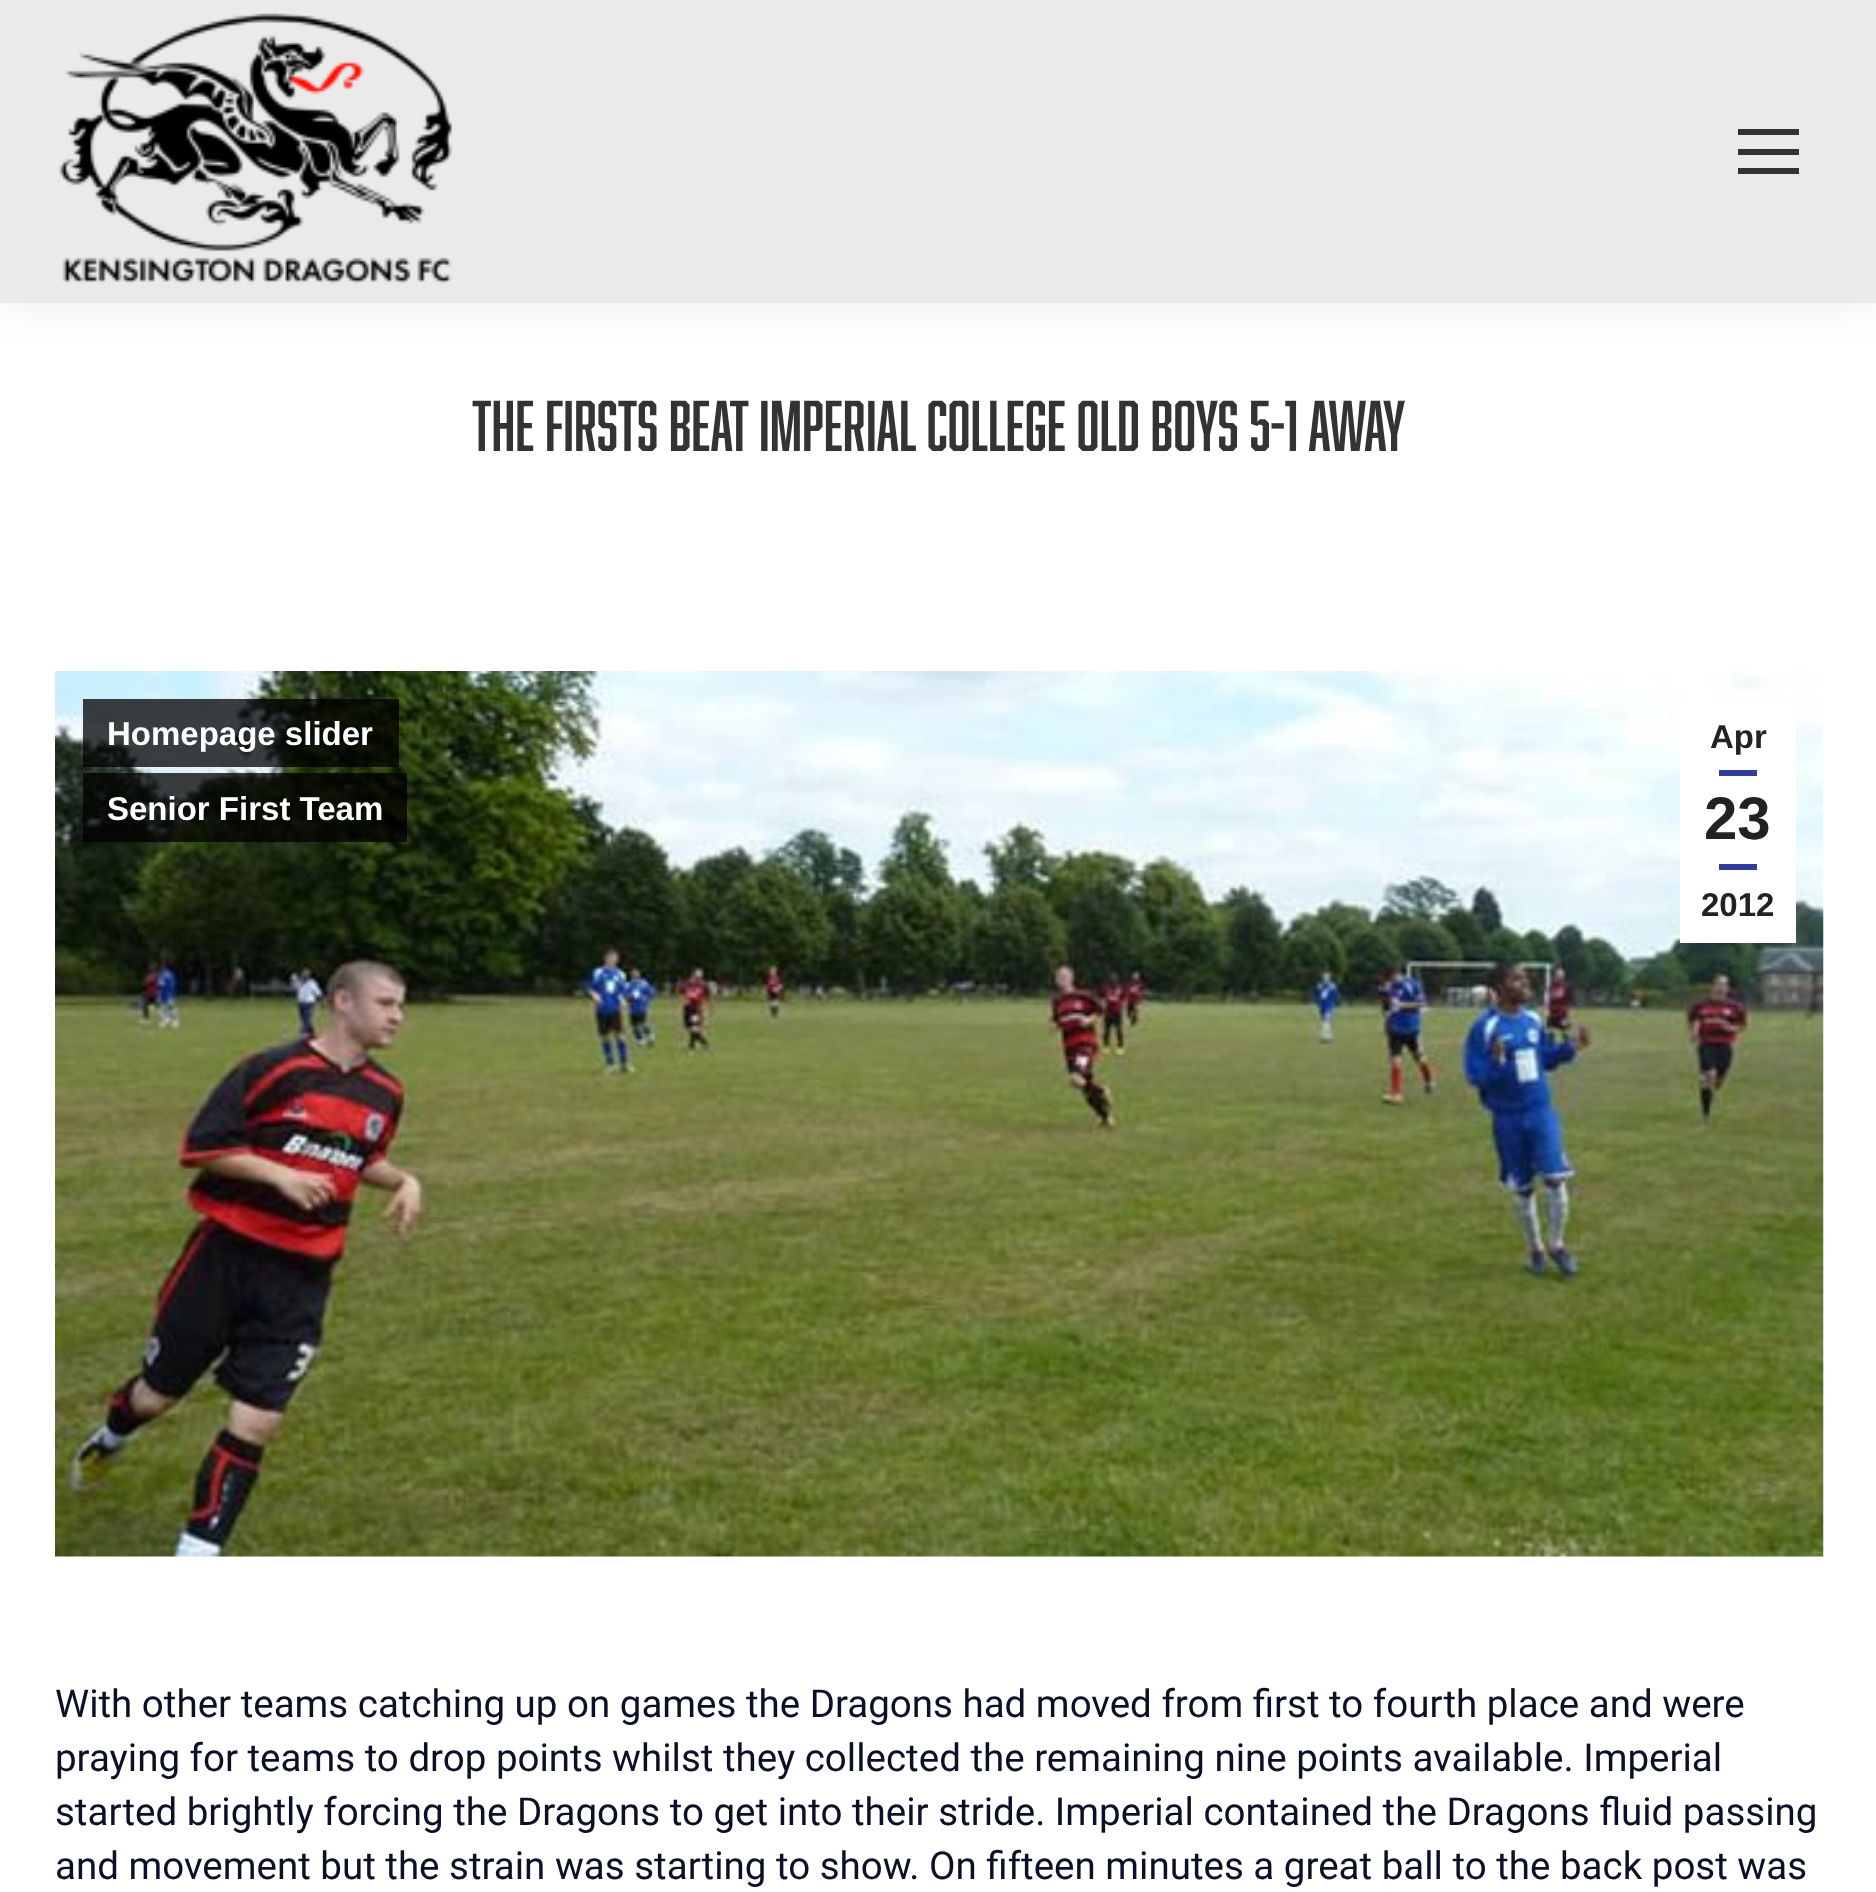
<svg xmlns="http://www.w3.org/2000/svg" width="1876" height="1892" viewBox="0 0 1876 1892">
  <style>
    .t1 { font: 66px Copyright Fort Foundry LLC; fill: #333; }
    .t2 { font: bold 33px Liberation Sans; fill: #fff; }
    .t3 { font: bold 33px Liberation Sans; fill: #222; }
    .t4 { font: bold 60px Liberation Sans; fill: #222; }
    .t5 { font: 38.5px Roboto; fill: #0b1026; }
  </style>
  <rect width="100%" height="100%" fill="#fff"/>
  <rect x="-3" y="-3" width="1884" height="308" fill="#00000012" filter="blur(20.5px)"/>
  <rect x="0" y="0" width="1876" height="303" fill="#eaeaea"/>
  <image x="59" y="13" width="394" height="271" href="images/1.png"/>
  <rect x="1738" y="129" width="61" height="6" fill="#333"/>
  <rect x="1738" y="149" width="61" height="6" fill="#333"/>
  <rect x="1738" y="168" width="61" height="6" fill="#333"/>
  <text x="472" y="451" class="t1">The Firsts beat Imperial College Old Boys 5-1 away</text>
  <image x="55" y="671" width="1769" height="886" href="images/2.png"/>
  <rect x="83" y="699" width="316" height="68" fill="#000000bf"/>
  <text x="107" y="745" class="t2">Homepage slider</text>
  <rect x="83" y="773" width="324" height="69" fill="#000000bf"/>
  <text x="107" y="820" class="t2">Senior First Team</text>
  <rect x="1680" y="704" width="116" height="239" fill="#fff"/>
  <text x="1710" y="748" class="t3">Apr</text>
  <rect x="1719" y="770" width="38" height="6" fill="#303b9d"/>
  <text x="1704" y="839" class="t4">23</text>
  <rect x="1719" y="864" width="38" height="6" fill="#303b9d"/>
  <text x="1701" y="916" class="t3">2012</text>
  <text x="55" y="1717" class="t5">With other teams catching up on games the Dragons had moved from first to fourth place and were</text>
  <text x="55" y="1771" class="t5">praying for teams to drop points whilst they collected the remaining nine points available. Imperial</text>
  <text x="55" y="1825" class="t5">started brightly forcing the Dragons to get into their stride. Imperial contained the Dragons fluid passing</text>
  <text x="55" y="1879" class="t5">and movement but the strain was starting to show. On fifteen minutes a great ball to the back post was</text>
</svg>
